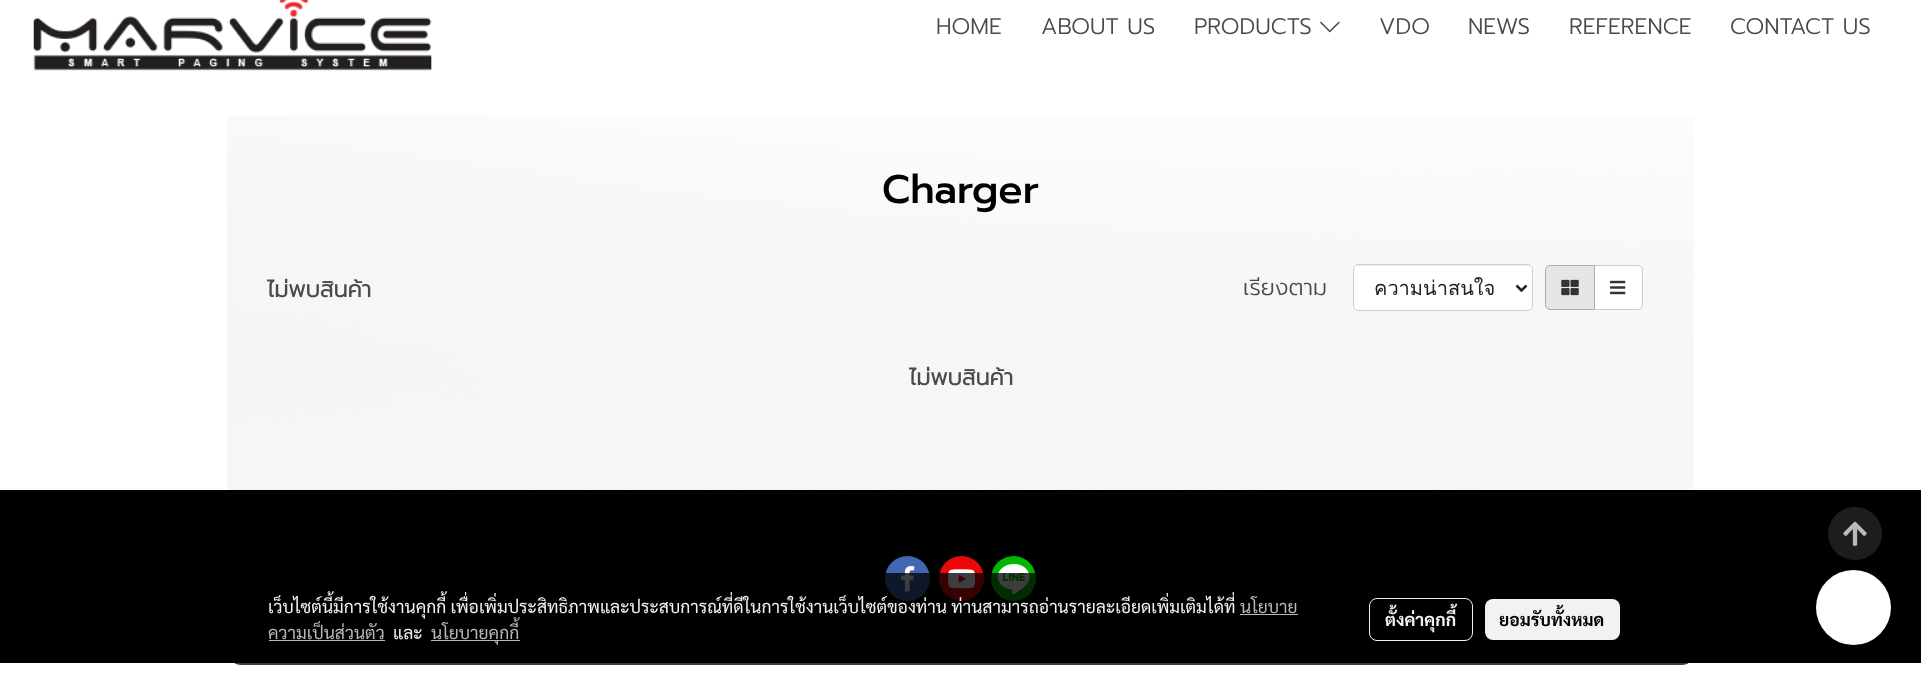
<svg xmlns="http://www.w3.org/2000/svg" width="1921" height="674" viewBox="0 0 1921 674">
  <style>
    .t1 { font: 300 22.5px Prompt; fill: #4a4a4a; }
    .t2 { font: 500 40px Prompt; fill: #000; }
    .t3 { font: bold 22.5px Prompt; fill: #4a4a4a; }
    .t4 { font: 20px Loma; fill: #212121; }
    .t5 { font: 17.5px Sarabun; fill: #f2f2f2; }
    .t6 { font: 17.5px Sarabun; fill: #b8b8b8; }
    .t7 { font: bold 17.5px Sarabun; fill: #f2f2f2; }
    .t8 { font: bold 17.5px Sarabun; fill: #000; }
  </style>
  <rect width="100%" height="100%" fill="#fff"/>
  <image x="227" y="116" width="1467" height="374" href="images/1.png"/>
  <image x="33" y="0" width="399" height="71" href="images/2.png"/>
  <text x="936" y="34" class="t1">HOME</text>
  <text x="1041" y="34" class="t1">ABOUT US</text>
  <text x="1194" y="34" class="t1">PRODUCTS</text>
  <image x="1320" y="21" width="20" height="12" href="images/3.png"/>
  <text x="1379" y="34" class="t1">VDO</text>
  <text x="1468" y="34" class="t1">NEWS</text>
  <text x="1569" y="34" class="t1">REFERENCE</text>
  <text x="1730" y="34" class="t1">CONTACT US</text>
  <text x="882" y="203" class="t2">Charger</text>
  <text x="267" y="297" class="t3">ไม่พบสินค้า</text>
  <text x="1243" y="295" class="t1">เรียงตาม</text>
  <rect x="1353" y="264" width="180" height="47" rx="5" fill="#fff"/>
  <path d="M1358 266H1528C1530 266 1531 268 1531 270V269C1531 267 1529 265 1527 265H1358C1356 265 1354 267 1354 269V270C1354 268 1355 266 1358 266Z" fill="#ececec"/>
  <rect x="1353.5" y="264.5" width="179" height="46" rx="4.5" fill="none" stroke="#cdced2"/>
  <path d="M1516.5 285.5L1521.5 290.5L1526.5 285.5" fill="none" stroke="#212121" stroke-width="2.5"/>
  <text x="1374" y="295" class="t4">ความน่าสนใจ</text>
  <path d="M1594.5 265.5H1638C1640.5 265.5 1642.5 267.5 1642.5 270V305C1642.5 307.5 1640.5 309.5 1638 309.5H1594.5Z" fill="#fff" stroke="#ccc"/>
  <path d="M1550 265.5H1594.5V309.5H1550C1547.5 309.5 1545.5 307.5 1545.5 305V270C1545.5 267.5 1547.5 265.5 1550 265.5Z" fill="#e6e6e6" stroke="#adadad"/>
  <image x="1561" y="279" width="18" height="17" href="images/4.png"/>
  <image x="1610" y="280" width="16" height="15" href="images/5.png"/>
  <text x="909" y="385" class="t3">ไม่พบสินค้า</text>
  <rect x="0" y="490" width="1921" height="173" fill="#000"/>
  <circle cx="907.5" cy="578.5" r="22.5" fill="#4267b2"/>
  <image x="901" y="566" width="14" height="26" href="images/6.png"/>
  <circle cx="961.5" cy="578.5" r="22.5" fill="#eb0808"/>
  <image x="948" y="569" width="28" height="20" href="images/7.png"/>
  <circle cx="1013.5" cy="578.5" r="22.5" fill="#00b800"/>
  <image x="997" y="564" width="39" height="37" href="images/8.png"/>
  <path d="M1855 507C1840 507 1828 519 1828 534C1828 548 1840 560 1855 560C1870 560 1882 548 1882 534C1882 519 1870 507 1855 507Z" fill="#1e1d1d"/>
  <image x="1843" y="521" width="24" height="25" href="images/9.png"/>
  <rect x="230" y="573" width="1463" height="92" rx="10" fill="#000000c2"/>
  <text x="268" y="613" class="t5">เว็บไซต์นี้มีการใช้งานคุกกี้ เพื่อเพิ่มประสิทธิภาพและประสบการณ์ที่ดีในการใช้งานเว็บไซต์ของท่าน ท่านสามารถอ่านรายละเอียดเพิ่มเติมได้ที่</text>
  <text x="1240" y="613" class="t6">นโยบาย</text>
  <rect x="1240" y="614" width="58" height="1" fill="#b8b8b8"/>
  <text x="268" y="639" class="t6">ความเป็นส่วนตัว</text>
  <rect x="269" y="640" width="116" height="1" fill="#b8b8b8"/>
  <text x="393" y="639" class="t5">และ</text>
  <rect x="431" y="640" width="89" height="1" fill="#b8b8b8"/>
  <text x="431" y="639" class="t6">นโยบายคุกกี้</text>
  <rect x="1369.5" y="598.5" width="103" height="42" rx="7.5" fill="none" stroke="#f2f2f2"/>
  <text x="1385" y="626" class="t7">ตั้งค่าคุกกี้</text>
  <rect x="1485" y="599" width="135" height="41" rx="8" fill="#f2f2f2"/>
  <text x="1499" y="626" class="t8">ยอมรับทั้งหมด</text>
  <circle cx="1853.5" cy="607.5" r="37.5" fill="#fff"/>
</svg>
